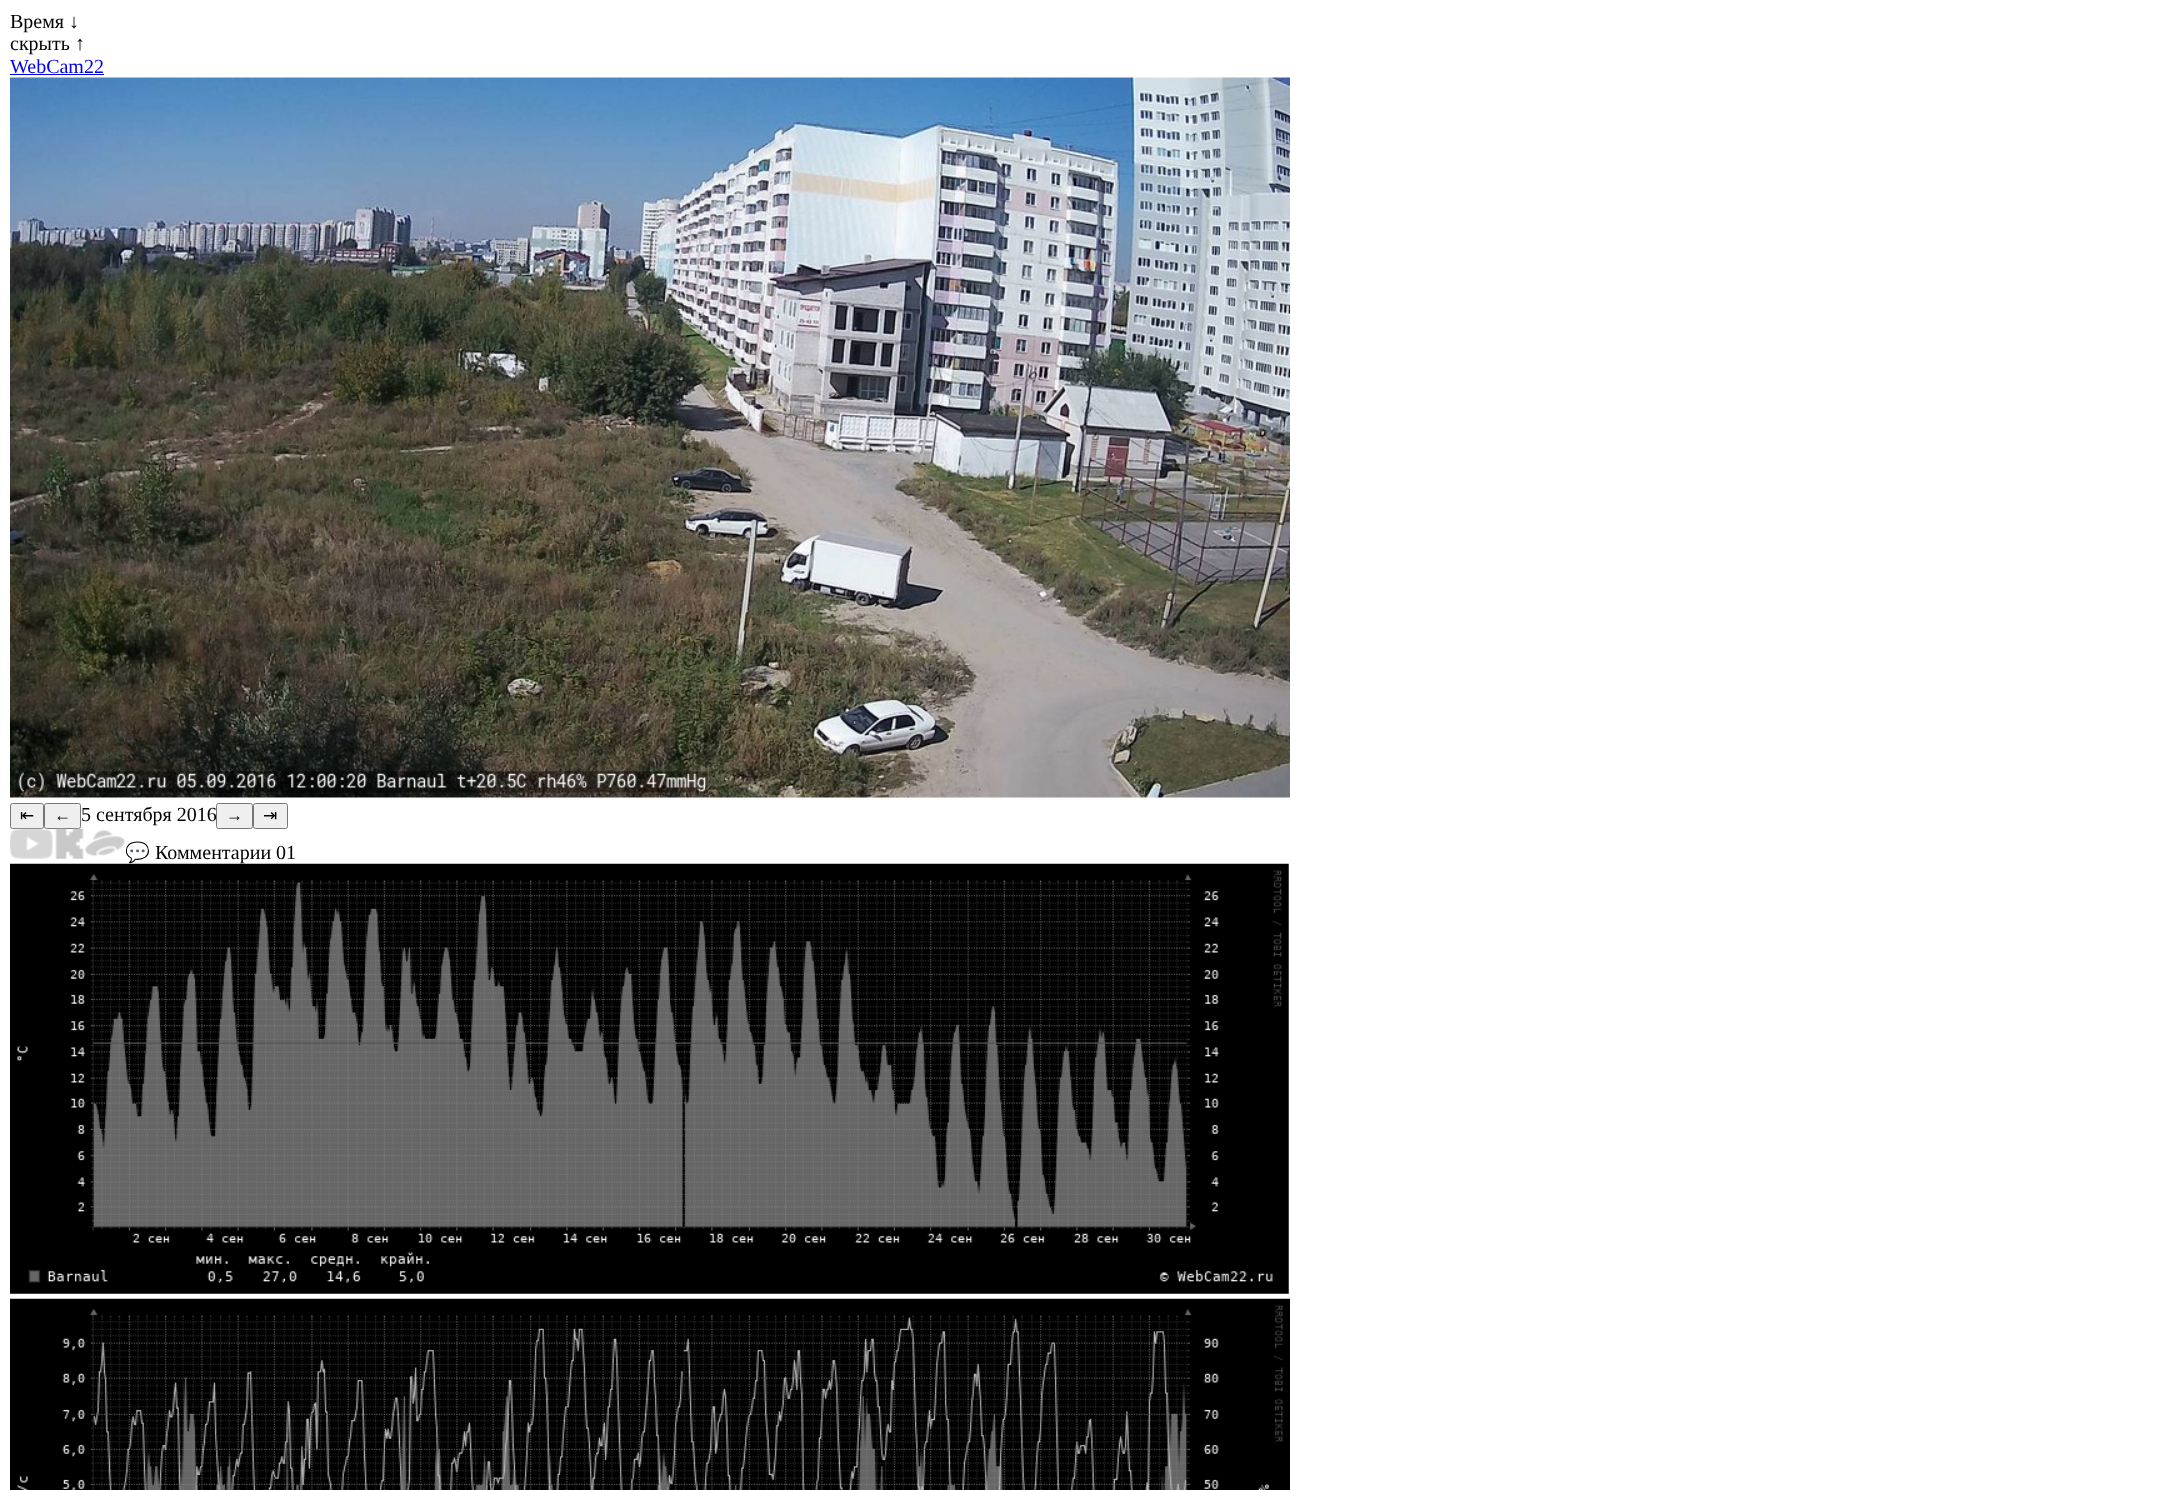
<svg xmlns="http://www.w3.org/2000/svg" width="2167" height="1490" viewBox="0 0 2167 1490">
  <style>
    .t1 { font: 20px Liberation Serif; fill: #000; }
    .t2 { font: 20px Liberation Serif; fill: #00e; }
    .t3 { font: 17px DejaVu Sans; fill: #000; }
    .t4 { font: 17px Liberation Sans; fill: #000; }
    .t5 { font: 20px Noto Color Emoji; fill: #000; }
  </style>
  <rect width="100%" height="100%" fill="#fff"/>
  <text x="10" y="28" class="t1">Время ↓</text>
  <text x="10" y="50" class="t1">скрыть ↑</text>
  <text x="10" y="73" class="t2">WebCam22</text>
  <rect x="10" y="74" width="94" height="1" fill="#00e"/>
  <image x="10" y="77" width="1280" height="721" href="images/1.png"/>
  <rect x="10.5" y="803.5" width="33" height="25" rx="2" fill="#efefef" stroke="#767676"/>
  <text x="20" y="821" class="t3">⇤</text>
  <rect x="44.5" y="803.5" width="36" height="25" rx="2" fill="#efefef" stroke="#767676"/>
  <text x="54" y="821" class="t4">←</text>
  <text x="81" y="821" class="t1">5 сентября 2016</text>
  <rect x="216.5" y="803.5" width="36" height="25" rx="2" fill="#efefef" stroke="#767676"/>
  <text x="226" y="821" class="t4">→</text>
  <rect x="253.5" y="803.5" width="34" height="25" rx="2" fill="#efefef" stroke="#767676"/>
  <text x="263" y="821" class="t3">⇥</text>
  <image x="10" y="828" width="43" height="31" href="images/2.png"/>
  <image x="55" y="828" width="29" height="31" href="images/3.png"/>
  <image x="85" y="830" width="40" height="27" href="images/4.png"/>
  <text x="125" y="859" class="t5">💬</text>
  <text x="155" y="859" class="t1">Комментарии 01</text>
  <image x="10" y="863" width="1279" height="431" href="images/5.png"/>
  <image x="10" y="1298" width="1280" height="192" href="images/6.png"/>
</svg>
